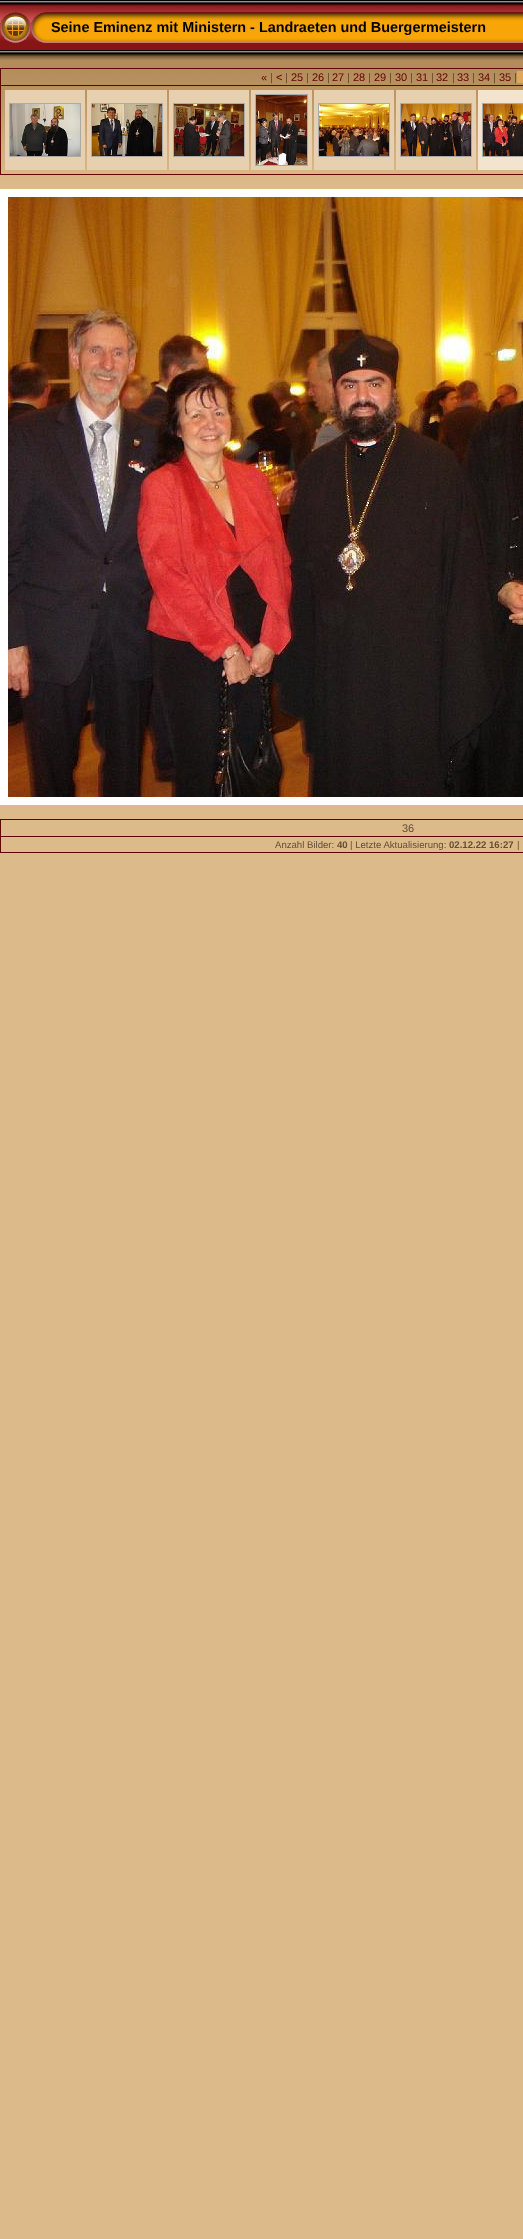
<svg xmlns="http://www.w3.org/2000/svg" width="523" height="2239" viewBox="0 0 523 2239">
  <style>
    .t1 { font: bold 14.4px Liberation Sans; fill: #000; }
    .t2 { font: 11px Liberation Sans; fill: #610505; }
    .t3 { font: 11px Liberation Sans; fill: #644e33; }
    .t4 { font: 9.6px Liberation Sans; fill: #644e33; }
    .t5 { font: bold 9.6px Liberation Sans; fill: #644e33; }
  </style>
  <rect width="100%" height="100%" fill="#ddba8a"/>
  <image x="0" y="0" width="523" height="189" href="images/1.png"/>
  <image x="0" y="12" width="31" height="31" href="images/2.png"/>
  <image x="31" y="12" width="20" height="31" href="images/3.png"/>
  <image x="51" y="12" width="472" height="31" href="images/4.png"/>
  <text x="51" y="32" class="t1">Seine Eminenz mit Ministern - Landraeten und Buergermeistern</text>
  <rect x="0" y="68" width="523" height="1" fill="#610505"/>
  <rect x="0" y="174" width="523" height="1" fill="#610505"/>
  <rect x="0" y="68" width="1" height="107" fill="#610505"/>
  <text x="261" y="81" class="t2">«</text>
  <text x="270" y="81" class="t3">|</text>
  <text x="276" y="81" class="t2">&lt;</text>
  <text x="285" y="81" class="t3">|</text>
  <text x="291" y="81" class="t2">25</text>
  <text x="306" y="81" class="t3">|</text>
  <text x="312" y="81" class="t2">26</text>
  <text x="327" y="81" class="t3">|</text>
  <text x="332" y="81" class="t2">27</text>
  <text x="347" y="81" class="t3">|</text>
  <text x="353" y="81" class="t2">28</text>
  <text x="368" y="81" class="t3">|</text>
  <text x="374" y="81" class="t2">29</text>
  <text x="389" y="81" class="t3">|</text>
  <text x="395" y="81" class="t2">30</text>
  <text x="410" y="81" class="t3">|</text>
  <text x="416" y="81" class="t2">31</text>
  <text x="431" y="81" class="t3">|</text>
  <text x="436" y="81" class="t2">32</text>
  <text x="452" y="81" class="t3">|</text>
  <text x="457" y="81" class="t2">33</text>
  <text x="472" y="81" class="t3">|</text>
  <text x="478" y="81" class="t2">34</text>
  <text x="493" y="81" class="t3">|</text>
  <text x="499" y="81" class="t2">35</text>
  <text x="514" y="81" class="t3">|</text>
  <rect x="517" y="71" width="6" height="12" fill="#e0a759"/>
  <rect x="0" y="85" width="523" height="1" fill="#610505"/>
  <rect x="5" y="90" width="80" height="80" fill="#e7d0b0"/>
  <rect x="9.5" y="103.5" width="71" height="53" fill="none" stroke="#aaa"/>
  <image x="10" y="104" width="70" height="52" href="images/5.png"/>
  <rect x="87" y="90" width="80" height="80" fill="#e7d0b0"/>
  <rect x="91.5" y="103.5" width="71" height="53" fill="none" stroke="#aaa"/>
  <image x="92" y="104" width="70" height="52" href="images/6.png"/>
  <rect x="169" y="90" width="80" height="80" fill="#e7d0b0"/>
  <rect x="173.5" y="103.5" width="71" height="53" fill="none" stroke="#aaa"/>
  <image x="174" y="104" width="70" height="52" href="images/7.png"/>
  <rect x="251" y="90" width="61" height="80" fill="#e7d0b0"/>
  <rect x="255.5" y="94.5" width="52" height="71" fill="none" stroke="#aaa"/>
  <image x="256" y="95" width="51" height="70" href="images/8.png"/>
  <rect x="314" y="90" width="80" height="80" fill="#e7d0b0"/>
  <rect x="318.5" y="103.5" width="71" height="53" fill="none" stroke="#aaa"/>
  <image x="319" y="104" width="70" height="52" href="images/9.png"/>
  <rect x="396" y="90" width="80" height="80" fill="#e7d0b0"/>
  <rect x="400.5" y="103.5" width="71" height="53" fill="none" stroke="#aaa"/>
  <image x="401" y="104" width="70" height="52" href="images/10.png"/>
  <rect x="478" y="90" width="45" height="80" fill="#f3e4cf"/>
  <rect x="482.5" y="103.5" width="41" height="53" fill="none" stroke="#aaa"/>
  <image x="483" y="104" width="40" height="52" href="images/11.png"/>
  <rect x="4" y="193" width="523" height="608" fill="none" stroke="#fff" stroke-width="8"/>
  <image x="8" y="197" width="515" height="600" href="images/12.png"/>
  <rect x="0" y="819" width="523" height="1" fill="#610505"/>
  <rect x="0" y="852" width="523" height="1" fill="#610505"/>
  <rect x="0" y="819" width="1" height="34" fill="#610505"/>
  <text x="402" y="832" class="t3">36</text>
  <rect x="0" y="836" width="523" height="1" fill="#610505"/>
  <text x="275" y="848" class="t4">Anzahl Bilder:</text>
  <text x="337" y="848" class="t5">40</text>
  <text x="350" y="848" class="t4">| Letzte Aktualisierung:</text>
  <text x="449" y="848" class="t5">02.12.22 16:27</text>
  <text x="517" y="848" class="t4">|</text>
</svg>
